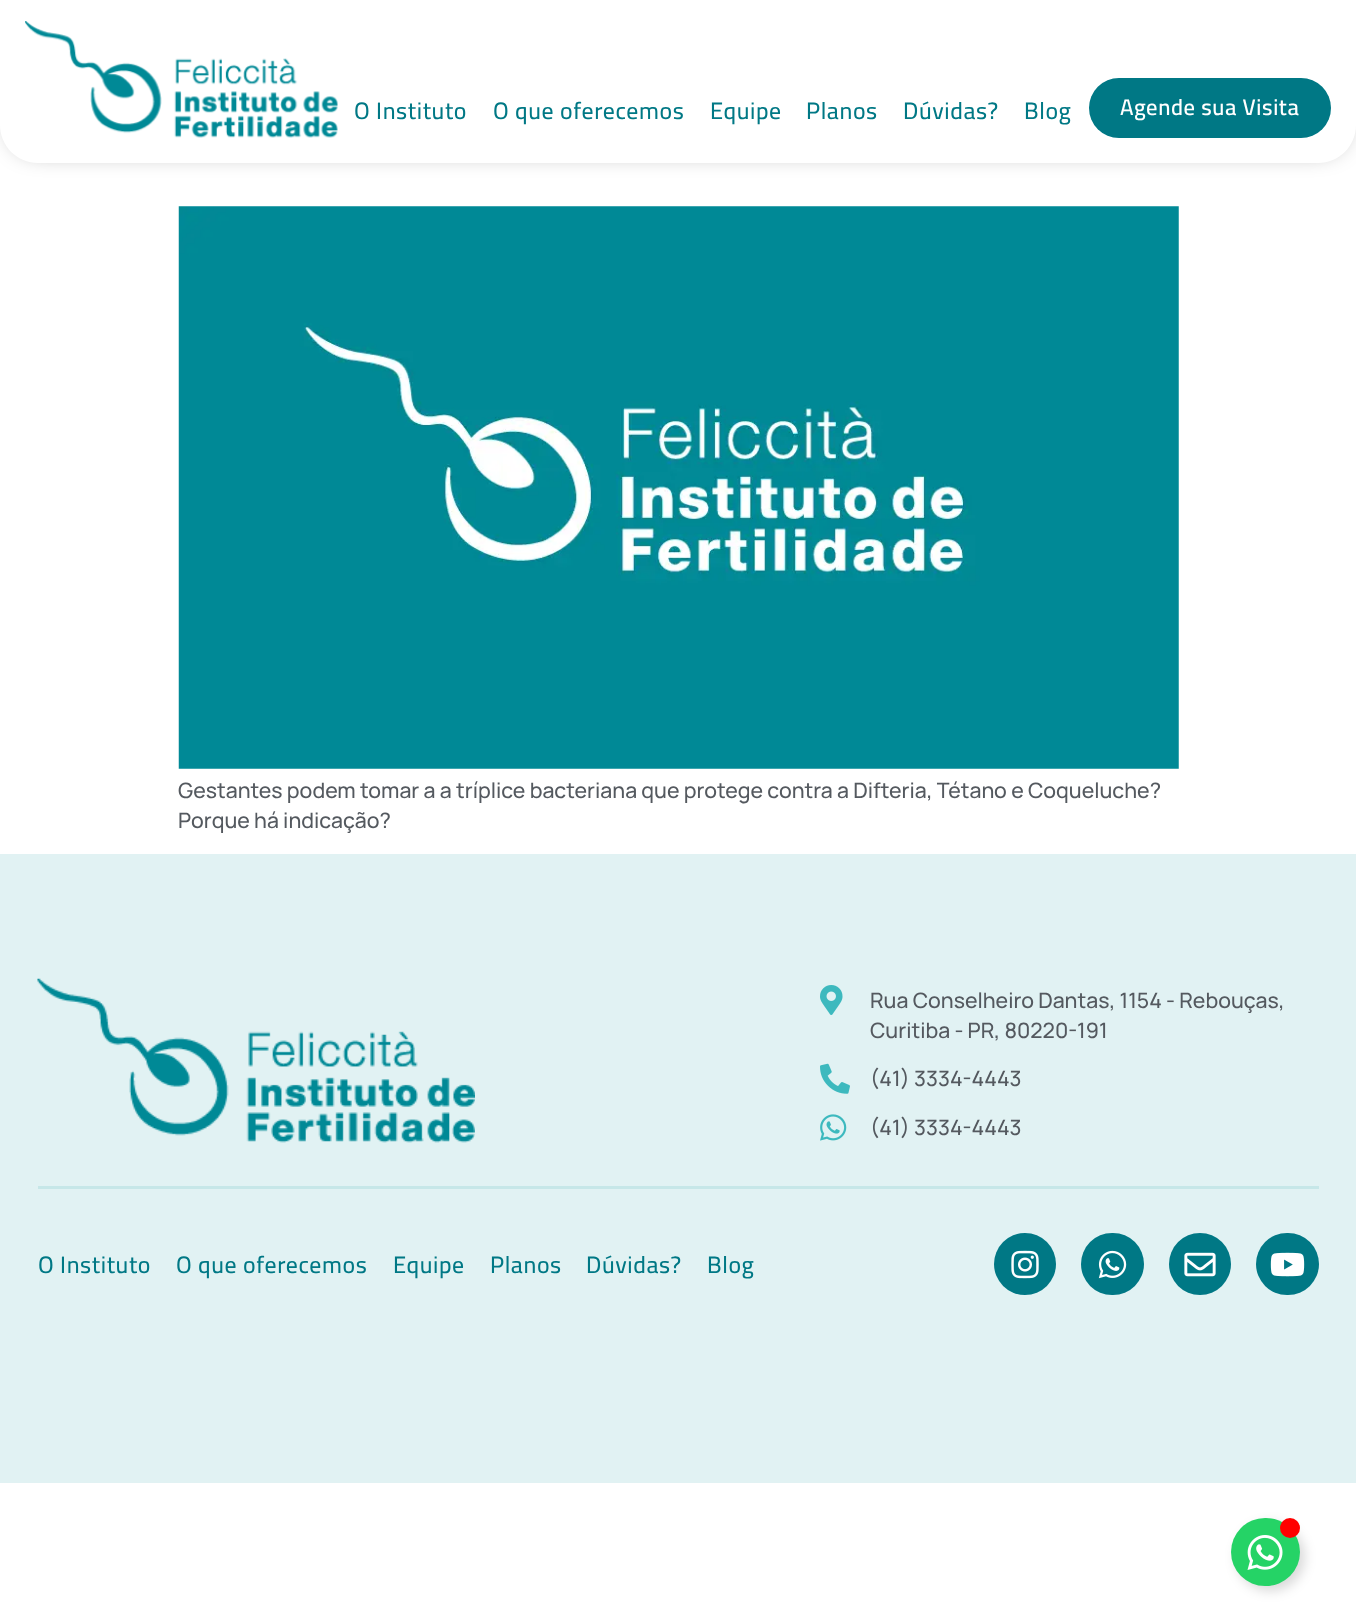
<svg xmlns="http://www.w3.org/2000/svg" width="1356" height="1617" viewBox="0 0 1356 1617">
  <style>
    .t1 { font: 500 23.75px Cairo; letter-spacing: 0.6px; fill: #007885; }
    .t2 { font: 600 22.5px Cairo; letter-spacing: 0.6px; fill: #fff; }
    .t3 { font: 500 21.25px Manrope; fill: #54595f; }
  </style>
  <rect width="100%" height="100%" fill="#fff"/>
  <rect x="13" y="13" width="1331" height="137" rx="25" fill="#00000080" filter="blur(12.5px)"/>
  <path d="M0 0H1356V125C1356 146 1339 163 1318 163H38C17 163 0 146 0 125Z" fill="#fff"/>
  <image x="25" y="21" width="313" height="117" href="images/1.png"/>
  <text x="354" y="119" class="t1">O Instituto</text>
  <text x="493" y="119" class="t1">O que oferecemos</text>
  <text x="710" y="119" class="t1">Equipe</text>
  <text x="806" y="119" class="t1">Planos</text>
  <text x="903" y="119" class="t1">Dúvidas?</text>
  <text x="1024" y="119" class="t1">Blog</text>
  <rect x="1089" y="78" width="242" height="60" rx="30" fill="#007885"/>
  <text x="1120" y="115" class="t2">Agende sua Visita</text>
  <image x="178" y="206" width="1001" height="563" href="images/2.png"/>
  <text x="178" y="798" class="t3">Gestantes podem tomar a a tríplice bacteriana que protege contra a Difteria, Tétano e Coqueluche?</text>
  <text x="178" y="828" class="t3">Porque há indicação?</text>
  <rect x="0" y="854" width="1356" height="629" fill="#e1f2f3"/>
  <image x="37" y="978" width="438" height="165" href="images/3.png"/>
  <image x="820" y="985" width="23" height="30" href="images/4.png"/>
  <text x="870" y="1008" class="t3">Rua Conselheiro Dantas, 1154 - Rebouças,</text>
  <text x="870" y="1038" class="t3">Curitiba - PR, 80220-191</text>
  <image x="820" y="1063" width="30" height="31" href="images/5.png"/>
  <text x="870" y="1086" class="t3">(41) 3334-4443</text>
  <image x="820" y="1114" width="27" height="27" href="images/6.png"/>
  <text x="870" y="1135" class="t3">(41) 3334-4443</text>
  <rect x="38" y="1186" width="1281" height="3" fill="#c6e7e8"/>
  <text x="38" y="1273" class="t1">O Instituto</text>
  <text x="176" y="1273" class="t1">O que oferecemos</text>
  <text x="393" y="1273" class="t1">Equipe</text>
  <text x="490" y="1273" class="t1">Planos</text>
  <text x="586" y="1273" class="t1">Dúvidas?</text>
  <text x="707" y="1273" class="t1">Blog</text>
  <circle cx="1025" cy="1264" r="31" fill="#007885"/>
  <image x="1011" y="1250" width="28" height="29" href="images/7.png"/>
  <rect x="1081" y="1233" width="63" height="62" rx="31" fill="#007885"/>
  <image x="1098" y="1250" width="29" height="29" href="images/8.png"/>
  <circle cx="1200" cy="1264" r="31" fill="#007885"/>
  <image x="1184" y="1252" width="32" height="25" href="images/9.png"/>
  <rect x="1256" y="1233" width="63" height="62" rx="31" fill="#007885"/>
  <image x="1270" y="1252" width="35" height="25" href="images/10.png"/>
  <rect x="1236" y="1523" width="69" height="68" rx="34" fill="#00000026" filter="blur(6px)"/>
  <rect x="1231" y="1518" width="69" height="68" rx="34" fill="#25d366"/>
  <image x="1247" y="1535" width="36" height="35" href="images/11.png"/>
  <circle cx="1290" cy="1528" r="10" fill="#f00"/>
</svg>
